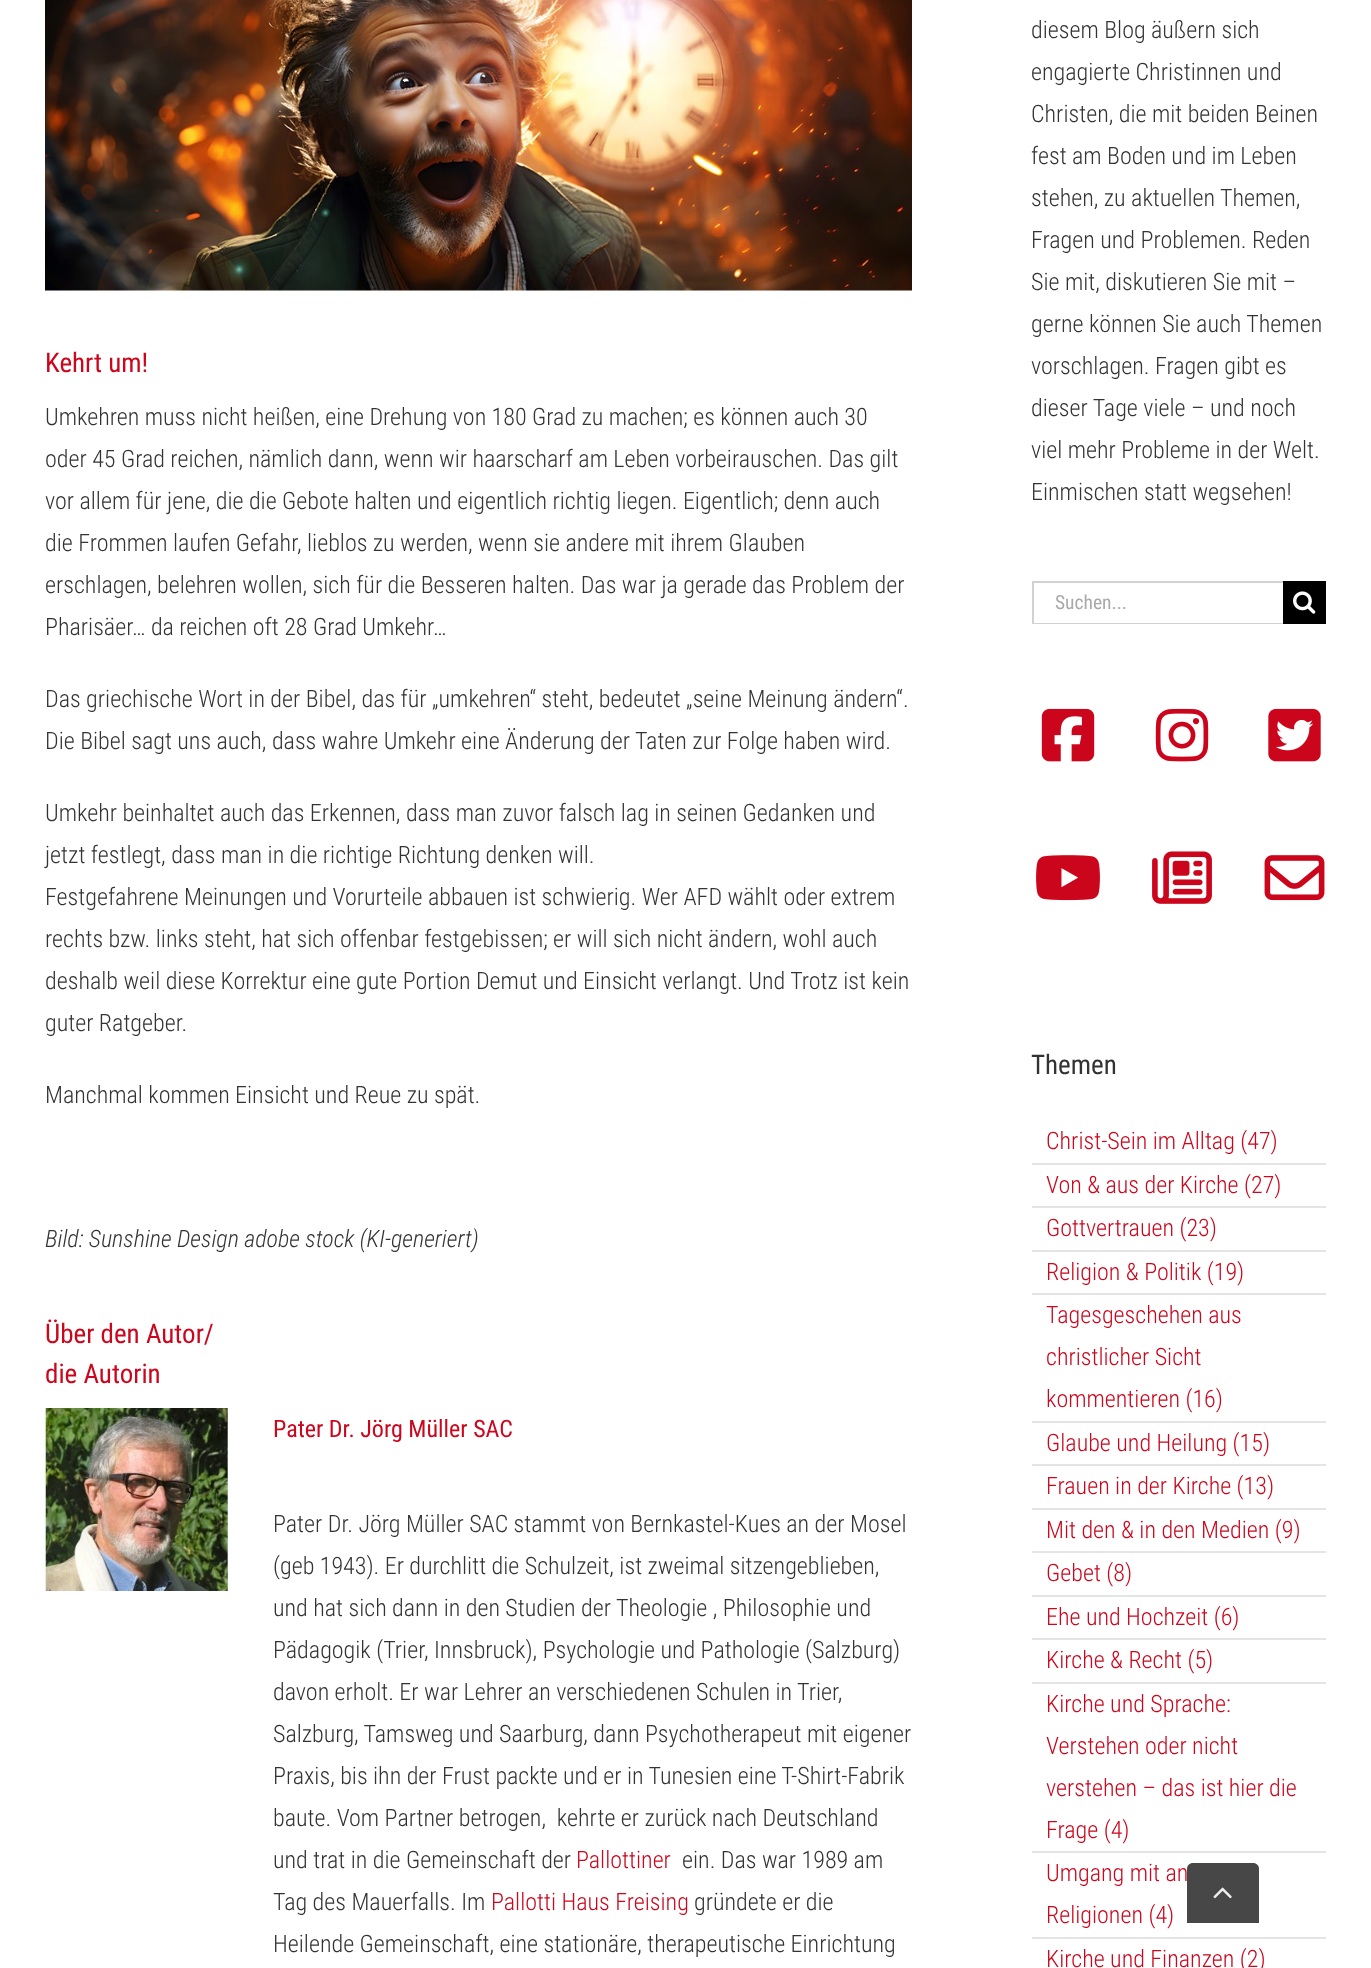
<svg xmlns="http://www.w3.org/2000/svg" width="1371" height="1968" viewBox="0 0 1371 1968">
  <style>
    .t1 { font: 27px Roboto Condensed; fill: #cb061d; }
    .t2 { font: 300 24px Roboto Condensed; fill: #333; }
    .t3 { font: italic 300 24px Roboto Condensed; fill: #333; }
    .t4 { font: 24px Roboto Condensed; fill: #cb061d; }
    .t5 { font: 300 24px Roboto Condensed; fill: #cb061d; }
    .t6 { font: 19.5px Roboto Condensed; fill: #aaa9a9; }
    .t7 { font: 27px Roboto Condensed; fill: #333; }
  </style>
  <rect width="100%" height="100%" fill="#fff"/>
  <image x="45" y="0" width="867" height="291" href="images/1.png"/>
  <text x="45" y="372" class="t1">Kehrt um!</text>
  <text x="45" y="425" class="t2">Umkehren muss nicht heißen, eine Drehung von 180 Grad zu machen; es können auch 30</text>
  <text x="45" y="467" class="t2">oder 45 Grad reichen, nämlich dann, wenn wir haarscharf am Leben vorbeirauschen. Das gilt</text>
  <text x="45" y="509" class="t2">vor allem für jene, die die Gebote halten und eigentlich richtig liegen. Eigentlich; denn auch</text>
  <text x="45" y="551" class="t2">die Frommen laufen Gefahr, lieblos zu werden, wenn sie andere mit ihrem Glauben</text>
  <text x="45" y="593" class="t2">erschlagen, belehren wollen, sich für die Besseren halten. Das war ja gerade das Problem der</text>
  <text x="45" y="635" class="t2">Pharisäer… da reichen oft 28 Grad Umkehr…</text>
  <text x="45" y="707" class="t2">Das griechische Wort in der Bibel, das für „umkehren“ steht, bedeutet „seine Meinung ändern“.</text>
  <text x="45" y="749" class="t2">Die Bibel sagt uns auch, dass wahre Umkehr eine Änderung der Taten zur Folge haben wird.</text>
  <text x="45" y="821" class="t2">Umkehr beinhaltet auch das Erkennen, dass man zuvor falsch lag in seinen Gedanken und</text>
  <text x="45" y="863" class="t2">jetzt festlegt, dass man in die richtige Richtung denken will.</text>
  <text x="45" y="905" class="t2">Festgefahrene Meinungen und Vorurteile abbauen ist schwierig. Wer AFD wählt oder extrem</text>
  <text x="45" y="947" class="t2">rechts bzw. links steht, hat sich offenbar festgebissen; er will sich nicht ändern, wohl auch</text>
  <text x="45" y="989" class="t2">deshalb weil diese Korrektur eine gute Portion Demut und Einsicht verlangt. Und Trotz ist kein</text>
  <text x="45" y="1031" class="t2">guter Ratgeber.</text>
  <text x="45" y="1103" class="t2">Manchmal kommen Einsicht und Reue zu spät.</text>
  <text x="45" y="1247" class="t3">Bild: Sunshine Design adobe stock (KI-generiert)</text>
  <text x="45" y="1343" class="t1">Über den Autor/</text>
  <text x="45" y="1383" class="t1">die Autorin</text>
  <image x="45" y="1408" width="183" height="183" href="images/2.png"/>
  <text x="273" y="1437" class="t4">Pater Dr. Jörg Müller SAC</text>
  <text x="273" y="1532" class="t2">Pater Dr. Jörg Müller SAC stammt von Bernkastel-Kues an der Mosel</text>
  <text x="273" y="1574" class="t2">(geb 1943). Er durchlitt die Schulzeit, ist zweimal sitzengeblieben,</text>
  <text x="273" y="1616" class="t2">und hat sich dann in den Studien der Theologie , Philosophie und</text>
  <text x="273" y="1658" class="t2">Pädagogik (Trier, Innsbruck), Psychologie und Pathologie (Salzburg)</text>
  <text x="273" y="1700" class="t2">davon erholt. Er war Lehrer an verschiedenen Schulen in Trier,</text>
  <text x="273" y="1742" class="t2">Salzburg, Tamsweg und Saarburg, dann Psychotherapeut mit eigener</text>
  <text x="273" y="1784" class="t2">Praxis, bis ihn der Frust packte und er in Tunesien eine T-Shirt-Fabrik</text>
  <text x="273" y="1826" class="t2" xml:space="preserve">baute. Vom Partner betrogen,  kehrte er zurück nach Deutschland</text>
  <text x="273" y="1868" class="t2">und trat in die Gemeinschaft der</text>
  <text x="576" y="1868" class="t5">Pallottiner</text>
  <text x="682" y="1868" class="t2">ein. Das war 1989 am</text>
  <text x="273" y="1910" class="t2">Tag des Mauerfalls. Im</text>
  <text x="491" y="1910" class="t5">Pallotti Haus Freising</text>
  <text x="694" y="1910" class="t2">gründete er die</text>
  <text x="273" y="1952" class="t2">Heilende Gemeinschaft, eine stationäre, therapeutische Einrichtung</text>
  <text x="1031" y="38" class="t2">diesem Blog äußern sich</text>
  <text x="1031" y="80" class="t2">engagierte Christinnen und</text>
  <text x="1031" y="122" class="t2">Christen, die mit beiden Beinen</text>
  <text x="1031" y="164" class="t2">fest am Boden und im Leben</text>
  <text x="1031" y="206" class="t2">stehen, zu aktuellen Themen,</text>
  <text x="1031" y="248" class="t2">Fragen und Problemen. Reden</text>
  <text x="1031" y="290" class="t2">Sie mit, diskutieren Sie mit –</text>
  <text x="1031" y="332" class="t2">gerne können Sie auch Themen</text>
  <text x="1031" y="374" class="t2">vorschlagen. Fragen gibt es</text>
  <text x="1031" y="416" class="t2">dieser Tage viele – und noch</text>
  <text x="1031" y="458" class="t2">viel mehr Probleme in der Welt.</text>
  <text x="1031" y="500" class="t2">Einmischen statt wegsehen!</text>
  <rect x="1032" y="581" width="251" height="2" fill="#d2d2d2"/>
  <rect x="1032" y="623" width="251" height="1" fill="#d2d2d2"/>
  <rect x="1032" y="581" width="2" height="43" fill="#d2d2d2"/>
  <text x="1055" y="609" class="t6">Suchen...</text>
  <rect x="1283" y="581" width="43" height="43" fill="#000"/>
  <image x="1293" y="591" width="23" height="23" href="images/3.png"/>
  <image x="1041" y="708" width="54" height="54" href="images/4.png"/>
  <image x="1155" y="708" width="54" height="54" href="images/5.png"/>
  <image x="1268" y="708" width="53" height="54" href="images/6.png"/>
  <image x="1036" y="855" width="64" height="46" href="images/7.png"/>
  <image x="1152" y="851" width="60" height="53" href="images/8.png"/>
  <image x="1264" y="855" width="61" height="46" href="images/9.png"/>
  <text x="1031" y="1074" class="t7">Themen</text>
  <rect x="1032" y="1163" width="294" height="2" fill="#e4e4e4"/>
  <text x="1046" y="1149" class="t5">Christ-Sein im Alltag (47)</text>
  <rect x="1032" y="1206" width="294" height="2" fill="#e4e4e4"/>
  <text x="1046" y="1193" class="t5">Von &amp; aus der Kirche (27)</text>
  <rect x="1032" y="1250" width="294" height="2" fill="#e4e4e4"/>
  <text x="1046" y="1236" class="t5">Gottvertrauen (23)</text>
  <rect x="1032" y="1293" width="294" height="2" fill="#e4e4e4"/>
  <text x="1046" y="1280" class="t5">Religion &amp; Politik (19)</text>
  <rect x="1032" y="1421" width="294" height="2" fill="#e4e4e4"/>
  <text x="1046" y="1323" class="t5">Tagesgeschehen aus</text>
  <text x="1046" y="1365" class="t5">christlicher Sicht</text>
  <text x="1046" y="1407" class="t5">kommentieren (16)</text>
  <rect x="1032" y="1464" width="294" height="2" fill="#e4e4e4"/>
  <text x="1046" y="1451" class="t5">Glaube und Heilung (15)</text>
  <rect x="1032" y="1508" width="294" height="2" fill="#e4e4e4"/>
  <text x="1046" y="1494" class="t5">Frauen in der Kirche (13)</text>
  <rect x="1032" y="1551" width="294" height="2" fill="#e4e4e4"/>
  <text x="1046" y="1538" class="t5">Mit den &amp; in den Medien (9)</text>
  <rect x="1032" y="1595" width="294" height="2" fill="#e4e4e4"/>
  <text x="1046" y="1581" class="t5">Gebet (8)</text>
  <rect x="1032" y="1638" width="294" height="2" fill="#e4e4e4"/>
  <text x="1046" y="1625" class="t5">Ehe und Hochzeit (6)</text>
  <rect x="1032" y="1682" width="294" height="2" fill="#e4e4e4"/>
  <text x="1046" y="1668" class="t5">Kirche &amp; Recht (5)</text>
  <rect x="1032" y="1851" width="294" height="2" fill="#e4e4e4"/>
  <text x="1046" y="1712" class="t5">Kirche und Sprache:</text>
  <text x="1046" y="1754" class="t5">Verstehen oder nicht</text>
  <text x="1046" y="1796" class="t5">verstehen – das ist hier die</text>
  <text x="1046" y="1838" class="t5">Frage (4)</text>
  <rect x="1032" y="1937" width="294" height="2" fill="#e4e4e4"/>
  <text x="1046" y="1881" class="t5">Umgang mit an</text>
  <text x="1046" y="1923" class="t5">Religionen (4)</text>
  <text x="1046" y="1967" class="t5">Kirche und Finanzen (2)</text>
  <path d="M1193 1863H1253C1256.5 1863 1259 1865.5 1259 1869V1923H1187V1869C1187 1865.5 1189.5 1863 1193 1863Z" fill="#333333e6"/>
  <image x="1213" y="1887" width="19" height="12" href="images/10.png"/>
</svg>
